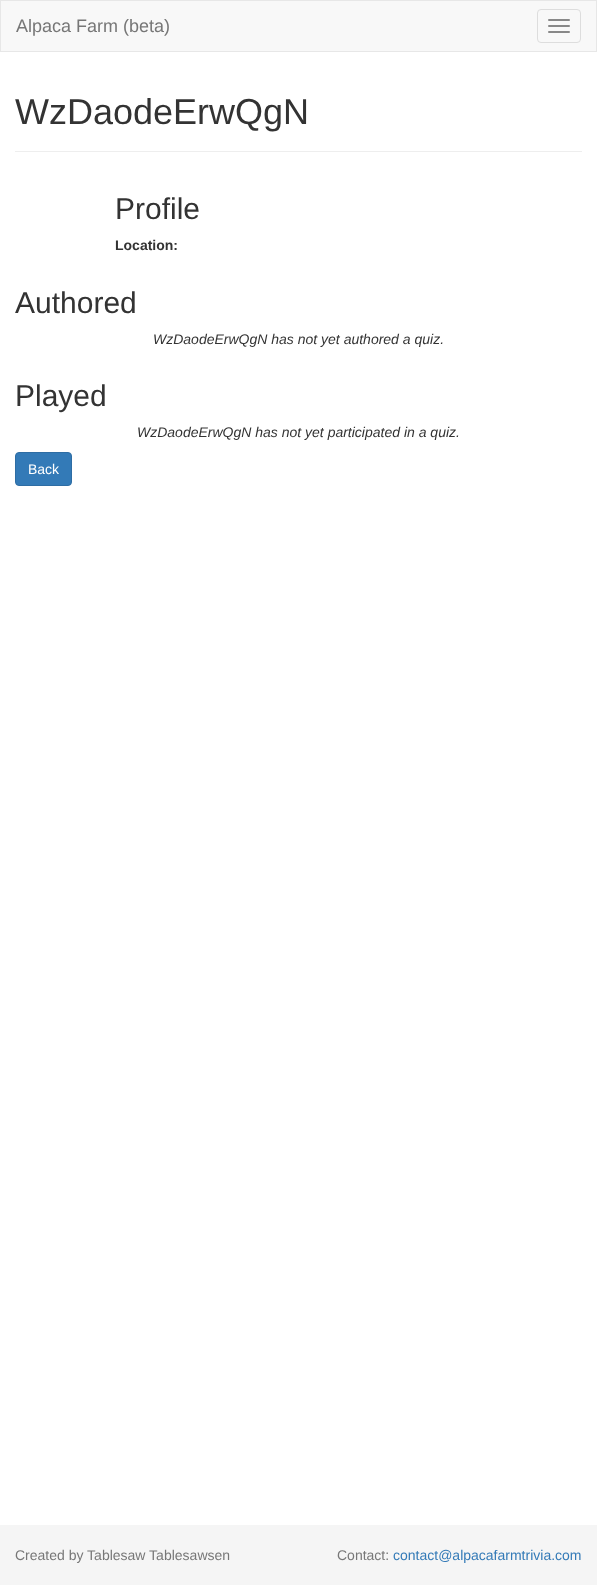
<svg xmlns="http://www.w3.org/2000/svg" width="597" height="1585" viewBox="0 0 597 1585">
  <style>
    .t1 { font: 18px Liberation Sans; fill: #777; }
    .t2 { font: 36px Liberation Sans; fill: #333; }
    .t3 { font: 30px Liberation Sans; fill: #333; }
    .t4 { font: bold 14px Liberation Sans; fill: #333; }
    .t5 { font: italic 14px Liberation Sans; fill: #333; }
    .t6 { font: 14px Liberation Sans; fill: #fff; }
    .t7 { font: 14px Liberation Sans; fill: #777; }
    .t8 { font: 14px Liberation Sans; fill: #337ab7; }
  </style>
  <rect width="100%" height="100%" fill="#fff"/>
  <rect x="0.5" y="0.5" width="596" height="51" fill="#f8f8f8" stroke="#e7e7e7"/>
  <text x="16" y="32" class="t1">Alpaca Farm (beta)</text>
  <rect x="537.5" y="9.5" width="43" height="33" rx="3.5" fill="none" stroke="#ddd"/>
  <rect x="548" y="19" width="22" height="2" rx="1" fill="#888"/>
  <rect x="548" y="25" width="22" height="2" rx="1" fill="#888"/>
  <rect x="548" y="31" width="22" height="2" rx="1" fill="#888"/>
  <rect x="15" y="151" width="567" height="1" fill="#eee"/>
  <text x="15" y="124" class="t2">WzDaodeErwQgN</text>
  <text x="115" y="219" class="t3">Profile</text>
  <text x="115" y="250" class="t4">Location:</text>
  <text x="15" y="313" class="t3">Authored</text>
  <text x="153" y="344" class="t5">WzDaodeErwQgN has not yet authored a quiz.</text>
  <text x="15" y="406" class="t3">Played</text>
  <text x="137" y="437" class="t5">WzDaodeErwQgN has not yet participated in a quiz.</text>
  <rect x="15.5" y="452.5" width="56" height="33" rx="3.5" fill="#337ab7" stroke="#2e6da4"/>
  <text x="28" y="474" class="t6">Back</text>
  <rect x="0" y="1525" width="597" height="60" fill="#f5f5f5"/>
  <text x="15" y="1560" class="t7">Created by Tablesaw Tablesawsen</text>
  <text x="337" y="1560" class="t7">Contact:</text>
  <text x="393" y="1560" class="t8">contact@alpacafarmtrivia.com</text>
</svg>
